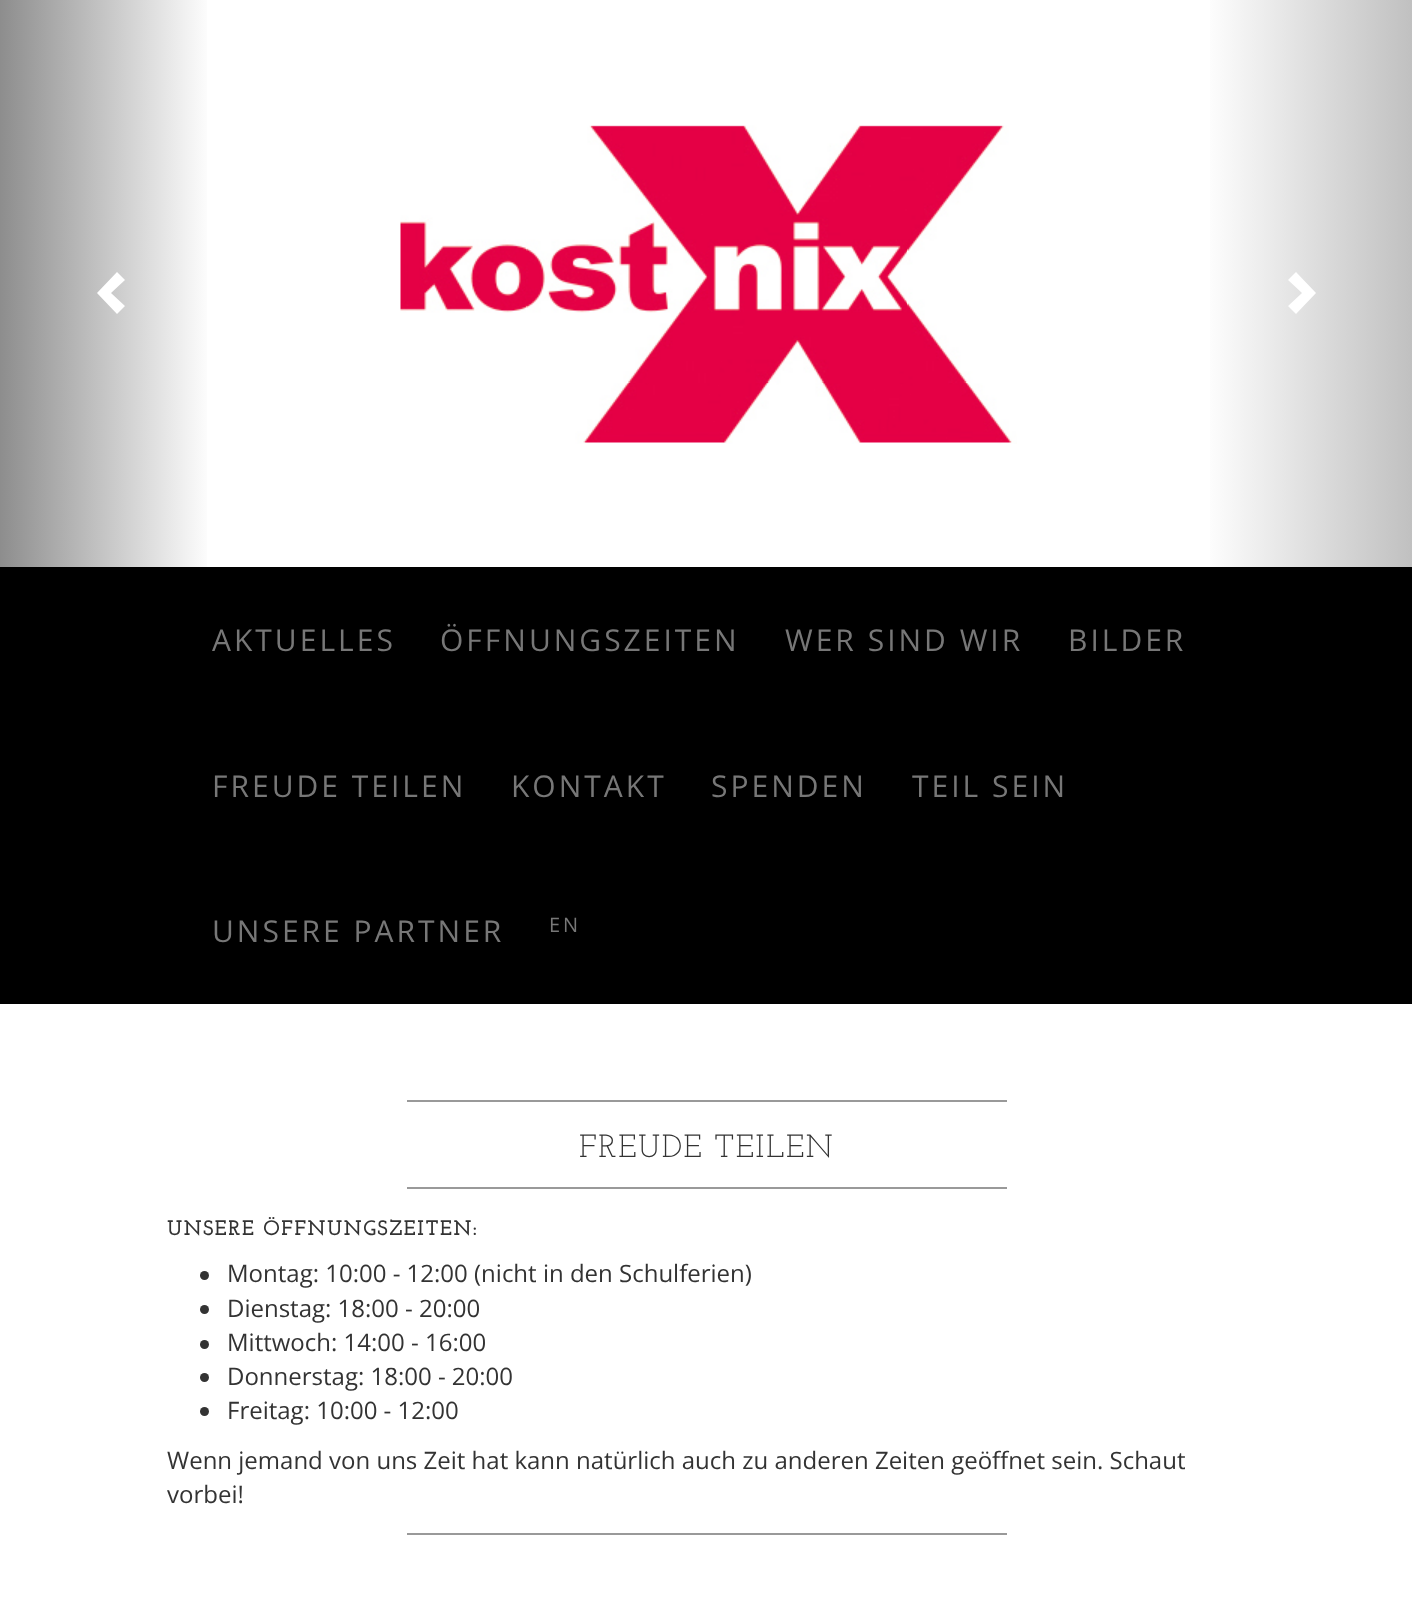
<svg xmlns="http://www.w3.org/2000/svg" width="1412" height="1612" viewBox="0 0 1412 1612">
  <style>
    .t1 { font: 30px Open Sans; letter-spacing: 3px; fill: #777; }
    .t2 { font: 20px Open Sans; letter-spacing: 3px; fill: #777; }
    .t3 { font: 32px Josefin Slab; letter-spacing: 1.5px; fill: #333; }
    .t4 { font: bold 21px Josefin Slab; letter-spacing: 1.5px; fill: #333; }
    .t5 { font: 24px Open Sans; fill: #333; }
  </style>
  <defs>
    <linearGradient id="g1" gradientUnits="userSpaceOnUse" x1="0" y1="284" x2="212" y2="284"><stop offset="0" stop-color="#8d8d8d"/><stop offset="1" stop-color="#fff"/></linearGradient>
    <linearGradient id="g2" gradientUnits="userSpaceOnUse" x1="1202" y1="284" x2="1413" y2="284"><stop offset="0" stop-color="#fff"/><stop offset="1" stop-color="#c0c0c0"/></linearGradient>
  </defs>
  <rect width="100%" height="100%" fill="#fff"/>
  <rect x="0" y="0" width="207" height="567" fill="url(#g1)"/>
  <path d="M125 280L111 293L125 306L117 314L97 293L117 272Z" fill="#fff"/>
  <image x="400" y="125" width="617" height="319" href="images/1.png"/>
  <rect x="1210" y="0" width="202" height="567" fill="url(#g2)"/>
  <path d="M1316 293L1296 314L1288 306L1302 293L1288 280L1296 272Z" fill="#fff"/>
  <rect x="0" y="567" width="1412" height="437" fill="#000"/>
  <text x="212" y="651" class="t1">AKTUELLES</text>
  <text x="440" y="651" class="t1">ÖFFNUNGSZEITEN</text>
  <text x="785" y="651" class="t1">WER SIND WIR</text>
  <text x="1068" y="651" class="t1">BILDER</text>
  <text x="212" y="797" class="t1">FREUDE TEILEN</text>
  <text x="511" y="797" class="t1">KONTAKT</text>
  <text x="711" y="797" class="t1">SPENDEN</text>
  <text x="912" y="797" class="t1">TEIL SEIN</text>
  <text x="212" y="942" class="t1">UNSERE PARTNER</text>
  <text x="549" y="932" class="t2">EN</text>
  <rect x="407" y="1100" width="600" height="2" fill="#999"/>
  <text x="579" y="1157" class="t3">FREUDE TEILEN</text>
  <rect x="407" y="1187" width="600" height="2" fill="#999"/>
  <text x="167" y="1235" class="t4">UNSERE ÖFFNUNGSZEITEN:</text>
  <circle cx="204.5" cy="1275.5" r="4.5" fill="#333"/>
  <text x="227" y="1282" class="t5">Montag: 10:00 - 12:00 (nicht in den Schulferien)</text>
  <circle cx="204.5" cy="1309.5" r="4.5" fill="#333"/>
  <text x="227" y="1317" class="t5">Dienstag: 18:00 - 20:00</text>
  <circle cx="204.5" cy="1344.5" r="4.5" fill="#333"/>
  <text x="227" y="1351" class="t5">Mittwoch: 14:00 - 16:00</text>
  <circle cx="204.5" cy="1377.5" r="4.5" fill="#333"/>
  <text x="227" y="1385" class="t5">Donnerstag: 18:00 - 20:00</text>
  <circle cx="204.5" cy="1411.5" r="4.5" fill="#333"/>
  <text x="227" y="1419" class="t5">Freitag: 10:00 - 12:00</text>
  <text x="167" y="1469" class="t5">Wenn jemand von uns Zeit hat kann natürlich auch zu anderen Zeiten geöffnet sein. Schaut</text>
  <text x="167" y="1503" class="t5">vorbei!</text>
  <rect x="407" y="1533" width="600" height="2" fill="#999"/>
</svg>
